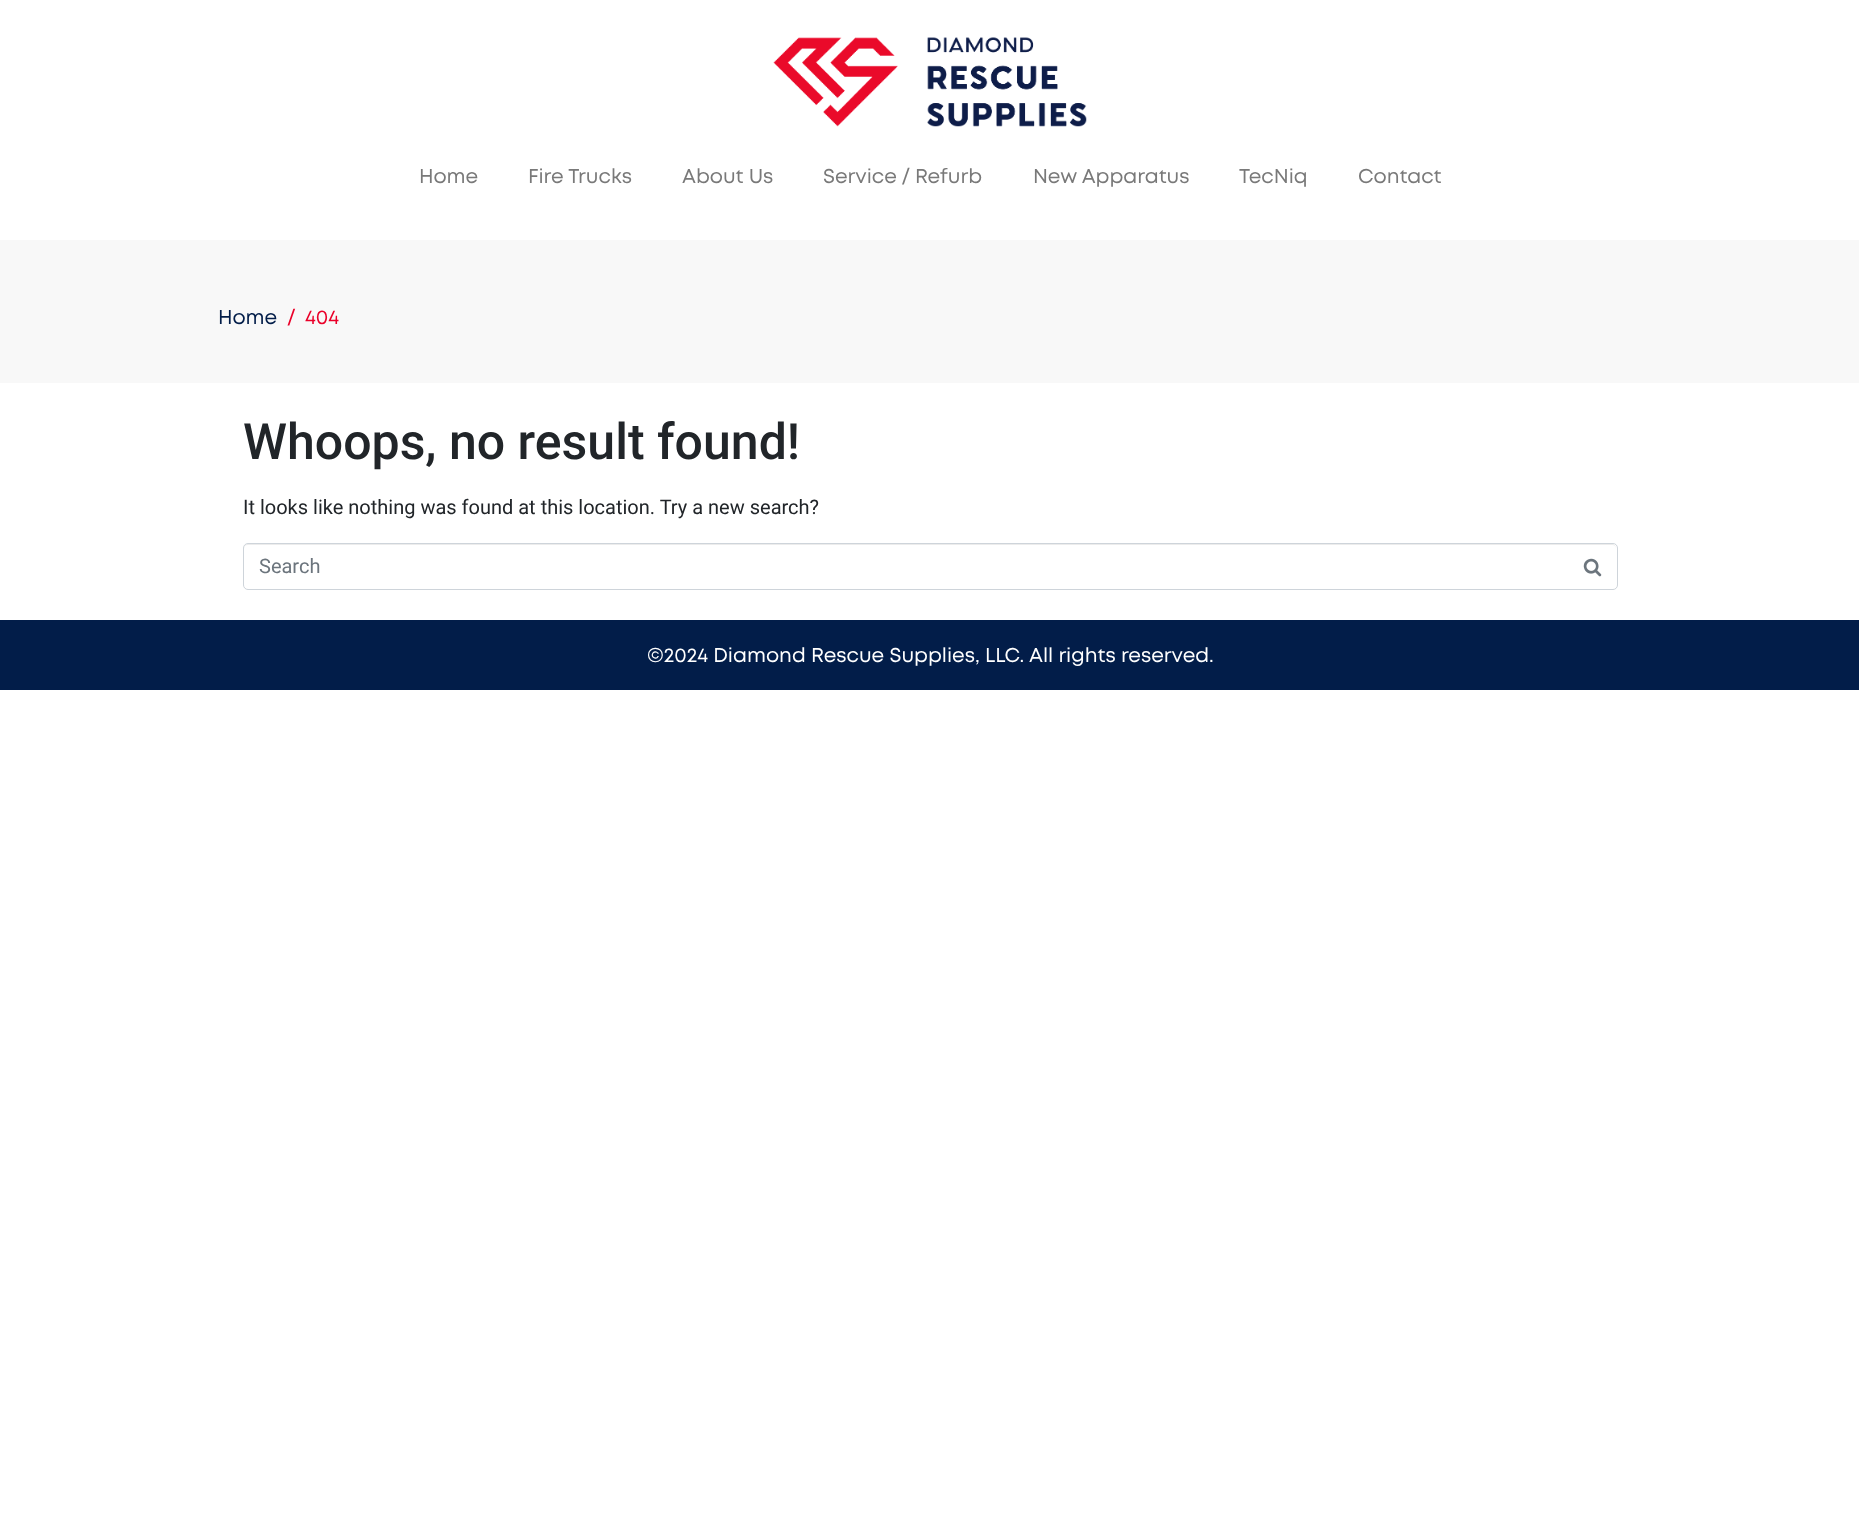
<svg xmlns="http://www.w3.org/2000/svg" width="1859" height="1531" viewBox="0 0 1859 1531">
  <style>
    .t1 { font: 20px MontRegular; fill: #797979; }
    .t2 { font: 20px MontRegular; fill: #021d49; }
    .t3 { font: 20px MontRegular; fill: #ea0029; }
    .t4 { font: 500 50px Roboto; fill: #212529; }
    .t5 { font: 20px Roboto; fill: #212529; }
    .t6 { font: 20px Roboto; fill: #6c757d; }
    .t7 { font: 20px MontRegular; fill: #fff; }
  </style>
  <rect width="100%" height="100%" fill="#fff"/>
  <image x="773" y="37" width="314" height="90" href="images/1.png"/>
  <text x="419" y="183" class="t1">Home</text>
  <text x="528" y="183" class="t1">Fire Trucks</text>
  <text x="682" y="183" class="t1">About Us</text>
  <text x="823" y="183" class="t1">Service / Refurb</text>
  <text x="1033" y="183" class="t1">New Apparatus</text>
  <text x="1239" y="183" class="t1">TecNiq</text>
  <text x="1358" y="183" class="t1">Contact</text>
  <rect x="0" y="240" width="1859" height="143" fill="#f8f8f8"/>
  <text x="218" y="324" class="t2">Home</text>
  <text x="287" y="324" class="t3">/</text>
  <text x="305" y="324" class="t3">404</text>
  <text x="243" y="459" class="t4">Whoops, no result found!</text>
  <text x="243" y="514" class="t5">It looks like nothing was found at this location. Try a new search?</text>
  <path d="M248 545H1612C1615 545 1616 547 1616 549V548C1616 546 1614 544 1612 544H248C246 544 244 546 244 548V549C244 547 245 545 248 545Z" fill="#ececec"/>
  <rect x="243.5" y="543.5" width="1374" height="46" rx="4.5" fill="none" stroke="#ced4da"/>
  <text x="259" y="573" class="t6">Search</text>
  <image x="1583" y="558" width="19" height="19" href="images/2.png"/>
  <rect x="0" y="620" width="1859" height="70" fill="#021d49"/>
  <text x="647" y="662" class="t7">©2024 Diamond Rescue Supplies, LLC. All rights reserved.</text>
</svg>
